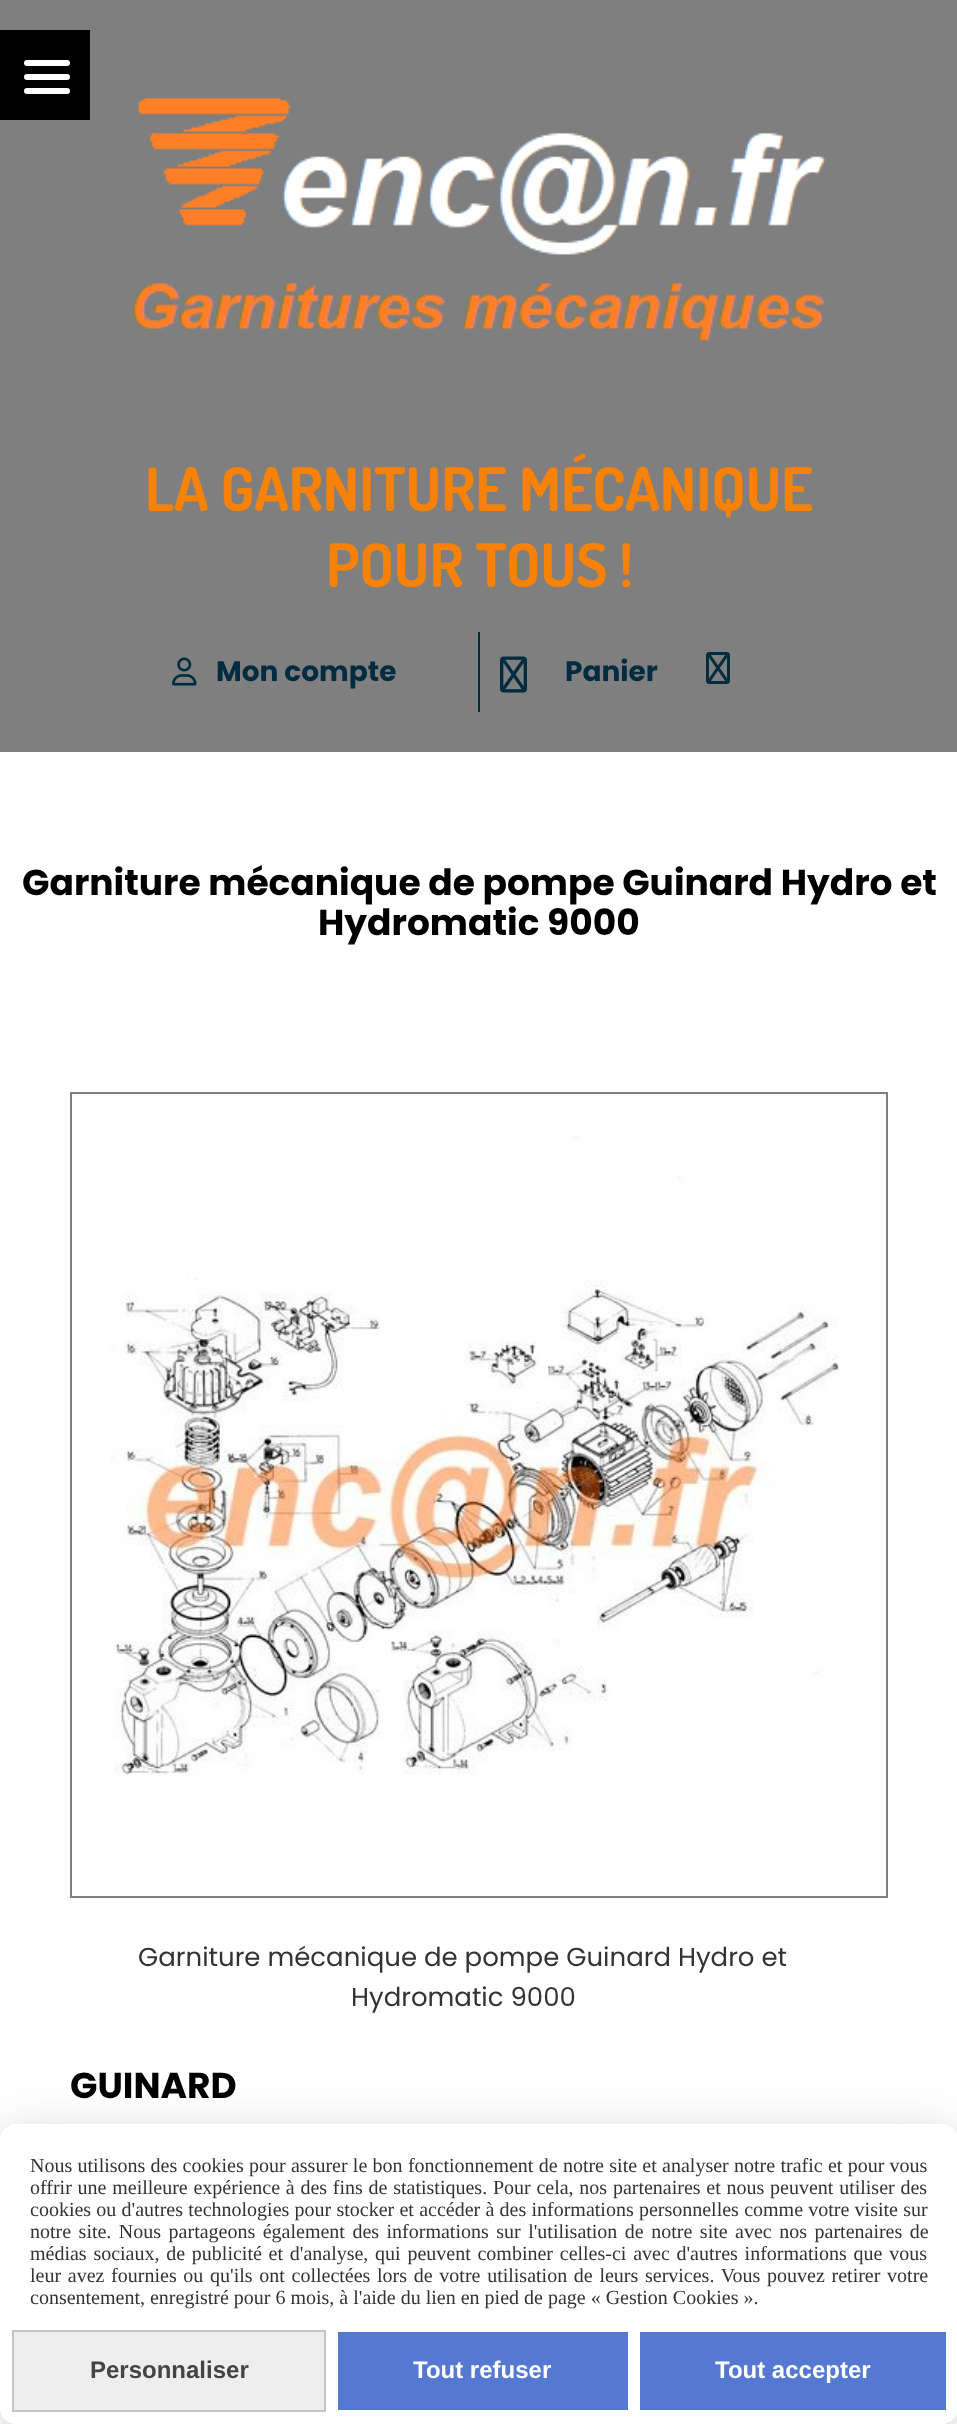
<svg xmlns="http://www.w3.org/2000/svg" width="957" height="2424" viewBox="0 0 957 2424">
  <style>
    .t1 { font: bold 60px Dosis; fill: #f78207; }
    .t2 { font: bold 28px Poppins; fill: #012c40; }
    .t3 { font: bold 36px Poppins; fill: #000; }
    .t4 { font: 26px Poppins; fill: #333; }
    .t5 { font: 20px Liberation Serif; fill: #333; }
    .t6 { font: bold 24px Liberation Sans; fill: #444; }
    .t7 { font: bold 24px Liberation Sans; fill: #fff; }
  </style>
  <rect width="100%" height="100%" fill="#fff"/>
  <rect x="0" y="0" width="957" height="752" fill="#7f7f7f"/>
  <rect x="0" y="30" width="90" height="90" fill="#000"/>
  <rect x="24" y="60" width="46" height="6" rx="3" fill="#fff"/>
  <rect x="24" y="74" width="46" height="6" rx="3" fill="#fff"/>
  <rect x="24" y="88" width="46" height="6" rx="3" fill="#fff"/>
  <image x="132" y="97" width="694" height="244" href="images/1.png"/>
  <text x="145" y="511" class="t1">LA GARNITURE MÉCANIQUE</text>
  <text x="326" y="587" class="t1">POUR TOUS !</text>
  <rect x="478" y="632" width="2" height="80" fill="#012c40"/>
  <image x="172" y="657" width="25" height="29" href="images/2.png"/>
  <text x="216" y="681" class="t2">Mon compte</text>
  <image x="500" y="656" width="27" height="37" href="images/3.png"/>
  <text x="565" y="681" class="t2">Panier</text>
  <image x="706" y="652" width="24" height="32" href="images/4.png"/>
  <text x="22" y="895" class="t3">Garniture mécanique de pompe Guinard Hydro et</text>
  <text x="318" y="935" class="t3">Hydromatic 9000</text>
  <rect x="71" y="1093" width="816" height="804" fill="none" stroke="#7f7f7f" stroke-width="2"/>
  <image x="110" y="1136" width="730" height="639" href="images/5.png"/>
  <text x="138" y="1966" class="t4">Garniture mécanique de pompe Guinard Hydro et</text>
  <text x="351" y="2006" class="t4">Hydromatic 9000</text>
  <text x="70" y="2098" class="t3">GUINARD</text>
  <rect x="0" y="2128" width="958" height="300" rx="16" fill="#0000000d" filter="blur(6px)"/>
  <rect x="0" y="2132" width="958" height="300" rx="16" fill="#00000026" filter="blur(24px)"/>
  <rect x="0" y="2124" width="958" height="300" rx="16" fill="#fff"/>
  <text x="30" y="2172" word-spacing="0.3" class="t5">Nous utilisons des cookies pour assurer le bon fonctionnement de notre site et analyser notre trafic et pour vous</text>
  <text x="30" y="2194" word-spacing="0.75" class="t5">offrir une meilleure expérience à des fins de statistiques. Pour cela, nos partenaires et nous peuvent utiliser des</text>
  <text x="30" y="2216" word-spacing="0.25" class="t5">cookies ou d'autres technologies pour stocker et accéder à des informations personnelles comme votre visite sur</text>
  <text x="30" y="2238" word-spacing="2.5" class="t5">notre site. Nous partageons également des informations sur l'utilisation de notre site avec nos partenaires de</text>
  <text x="30" y="2260" word-spacing="1.75" class="t5">médias sociaux, de publicité et d'analyse, qui peuvent combiner celles-ci avec d'autres informations que vous</text>
  <text x="30" y="2282" word-spacing="1.7" class="t5">leur avez fournies ou qu'ils ont collectées lors de votre utilisation de leurs services. Vous pouvez retirer votre</text>
  <text x="30" y="2304" class="t5">consentement, enregistré pour 6 mois, à l'aide du lien en pied de page « Gestion Cookies ».</text>
  <rect x="13" y="2331" width="312" height="80" fill="#eee" stroke="#c5c5c5" stroke-width="2"/>
  <text x="90" y="2378" class="t6">Personnaliser</text>
  <rect x="338" y="2332" width="290" height="78" fill="#5579d2"/>
  <text x="413" y="2378" class="t7">Tout refuser</text>
  <rect x="640" y="2332" width="306" height="78" fill="#5579d2"/>
  <text x="715" y="2378" class="t7">Tout accepter</text>
</svg>
